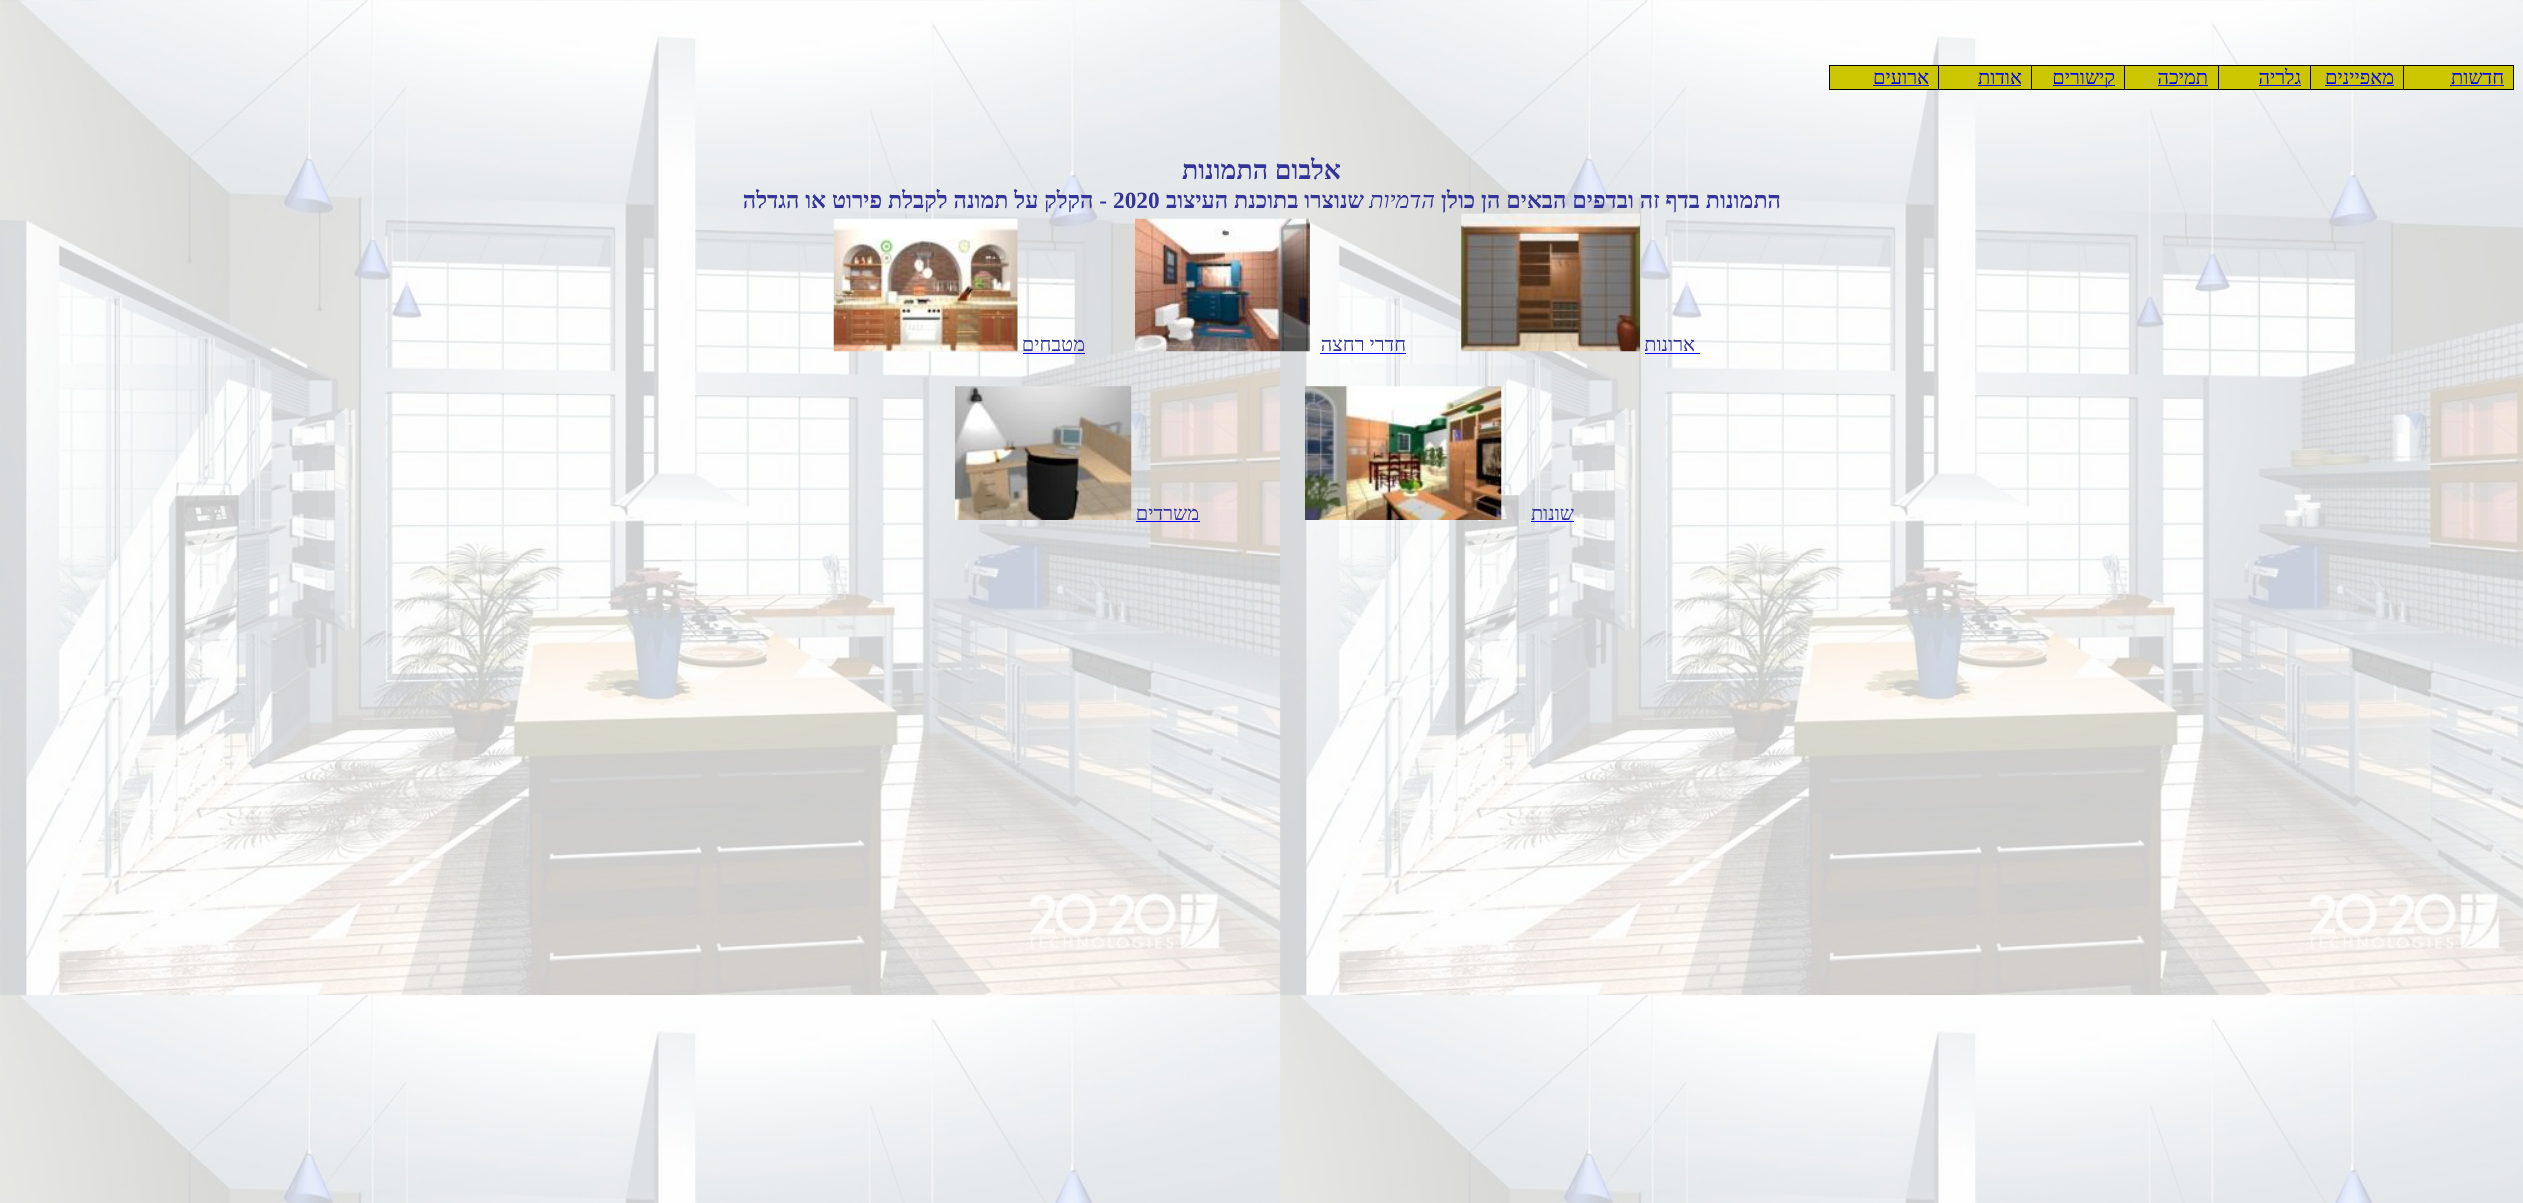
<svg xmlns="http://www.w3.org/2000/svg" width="2523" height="1203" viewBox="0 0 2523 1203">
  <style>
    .t1 { font: 20px Liberation Serif; direction: rtl; fill: #00f; }
    .t2 { font: bold 26.75px Liberation Serif; direction: rtl; fill: #339; }
    .t3 { font: bold 23.3px Liberation Serif; direction: rtl; fill: #339; }
    .t4 { font: italic 23.3px Liberation Serif; direction: rtl; fill: #339; }
    .t5 { font: bold 23.3px Liberation Serif; fill: #339; }
    .t6 { font: 20px Liberation Serif; direction: rtl; fill: #339; }
  </style>
  <rect width="100%" height="100%" fill="#fff"/>
  <image x="0" y="0" width="2523" height="1203" href="images/1.png"/>
  <rect x="1830" y="66" width="683" height="23" fill="#cbc600"/>
  <rect x="1829" y="65" width="685" height="1" fill="#000"/>
  <rect x="2513" y="65" width="1" height="25" fill="#000"/>
  <rect x="2403" y="89" width="111" height="1" fill="#000"/>
  <text x="2504" y="84" class="t1">חדשות</text>
  <rect x="2450" y="85" width="54" height="1" fill="#00f"/>
  <rect x="2403" y="65" width="1" height="25" fill="#000"/>
  <rect x="2310" y="89" width="94" height="1" fill="#000"/>
  <text x="2394" y="84" class="t1">מאפיינים</text>
  <rect x="2325" y="85" width="69" height="1" fill="#00f"/>
  <rect x="2310" y="65" width="1" height="25" fill="#000"/>
  <rect x="2218" y="89" width="93" height="1" fill="#000"/>
  <text x="2301" y="84" class="t1">גלריה</text>
  <rect x="2259" y="85" width="42" height="1" fill="#00f"/>
  <rect x="2218" y="65" width="1" height="25" fill="#000"/>
  <rect x="2124" y="89" width="95" height="1" fill="#000"/>
  <text x="2208" y="84" class="t1">תמיכה</text>
  <rect x="2158" y="85" width="50" height="1" fill="#00f"/>
  <rect x="2124" y="65" width="1" height="25" fill="#000"/>
  <rect x="2031" y="89" width="94" height="1" fill="#000"/>
  <rect x="2053" y="85" width="62" height="1" fill="#00f"/>
  <text x="2115" y="84" class="t1">קישורים</text>
  <rect x="2031" y="65" width="1" height="25" fill="#000"/>
  <rect x="1938" y="89" width="95" height="1" fill="#000"/>
  <text x="2022" y="84" class="t1">אודות</text>
  <rect x="1978" y="85" width="43" height="1" fill="#00f"/>
  <rect x="1938" y="65" width="1" height="25" fill="#000"/>
  <rect x="1829" y="89" width="110" height="1" fill="#000"/>
  <rect x="1829" y="65" width="1" height="25" fill="#000"/>
  <text x="1929" y="84" class="t1">ארועים</text>
  <rect x="1873" y="85" width="56" height="1" fill="#00f"/>
  <text x="1341" y="179" class="t2">אלבום התמונות</text>
  <text x="1781" y="208" class="t3">התמונות בדף זה ובדפים הבאים הן כולן</text>
  <text x="1435" y="208" class="t4">הדמיות</text>
  <text x="1364" y="208" class="t3">שנוצרו בתוכנת העיצוב</text>
  <text x="1113" y="208" class="t5">2020</text>
  <text x="1107" y="208" class="t3">- הקלק על תמונה לקבלת פירוט או הגדלה</text>
  <text x="1695" y="351" class="t6">ארונות</text>
  <rect x="1645" y="353" width="55" height="1" fill="#00f"/>
  <image x="1461" y="213" width="179" height="139" href="images/2.png"/>
  <text x="1406" y="351" class="t6">חדרי רחצה</text>
  <rect x="1320" y="353" width="86" height="1" fill="#00f"/>
  <image x="1135" y="218" width="175" height="134" href="images/3.png"/>
  <text x="1085" y="351" class="t6">מטבחים</text>
  <rect x="1023" y="353" width="62" height="1" fill="#00f"/>
  <image x="833" y="218" width="185" height="134" href="images/4.png"/>
  <text x="1574" y="520" class="t6">שונות</text>
  <rect x="1531" y="521" width="43" height="1" fill="#00f"/>
  <image x="1305" y="386" width="197" height="134" href="images/5.png"/>
  <text x="1199" y="520" class="t6">משרדים</text>
  <rect x="1136" y="521" width="64" height="1" fill="#00f"/>
  <image x="955" y="386" width="177" height="134" href="images/6.png"/>
</svg>
